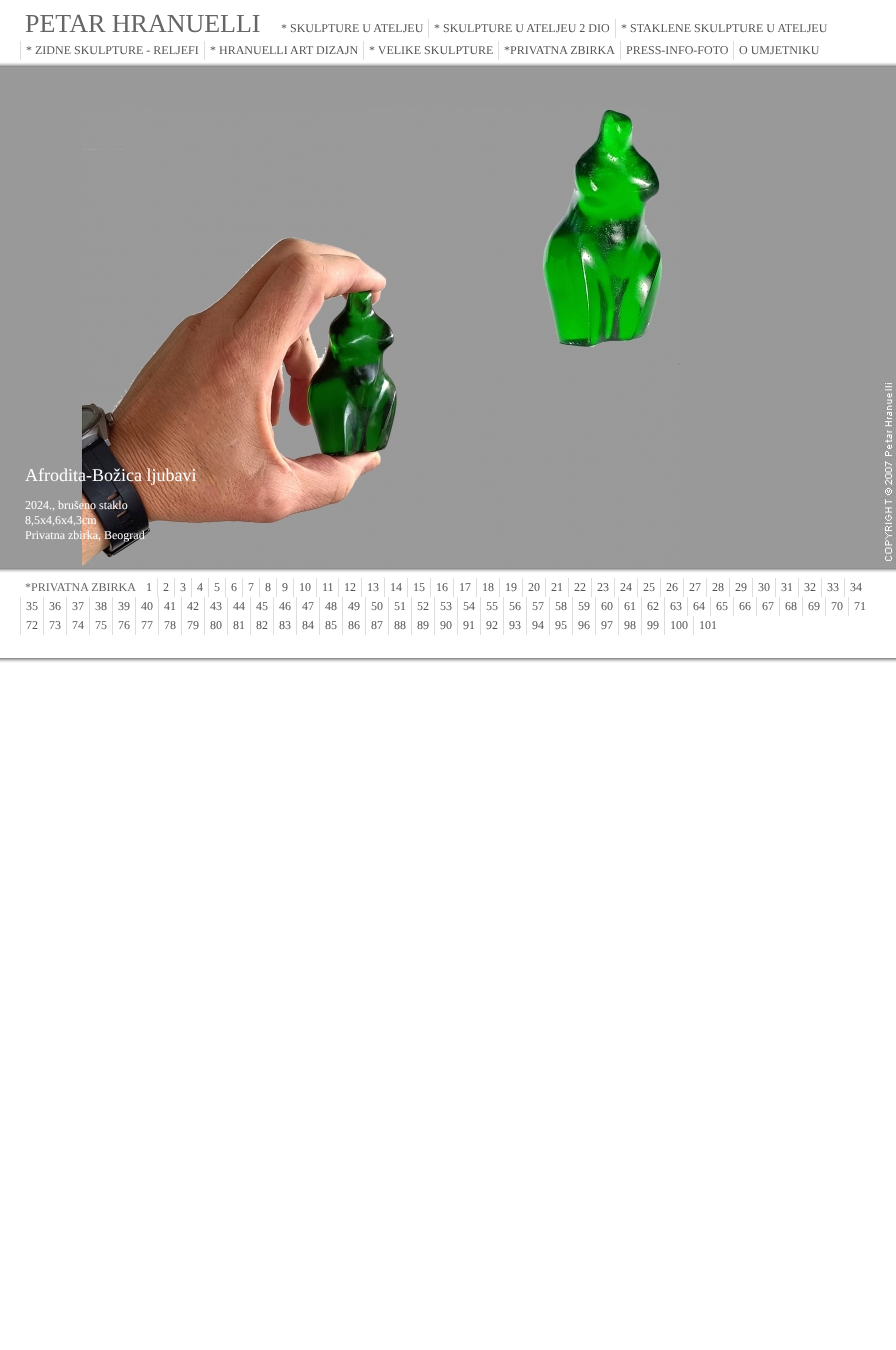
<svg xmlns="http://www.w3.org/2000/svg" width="896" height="1350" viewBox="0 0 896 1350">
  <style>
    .t1 { font: 26px Liberation Serif; fill: #666; }
    .t2 { font: 12px Liberation Serif; fill: #555; }
    .t3 { font: 18px Liberation Serif; fill: #fff; }
    .t4 { font: 12px Liberation Serif; fill: #fff; }
    .t5 { font: 12px Liberation Serif; fill: #666; }
  </style>
  <rect width="100%" height="100%" fill="#fff"/>
  <image x="0" y="62" width="896" height="5" href="images/1.png"/>
  <text x="25" y="32" class="t1">PETAR HRANUELLI</text>
  <text x="281" y="32" class="t2">* SKULPTURE U ATELJEU</text>
  <rect x="428" y="19" width="1" height="19" fill="#ddd"/>
  <text x="434" y="32" class="t2">* SKULPTURE U ATELJEU 2 DIO</text>
  <rect x="615" y="19" width="1" height="19" fill="#ddd"/>
  <text x="621" y="32" class="t2">* STAKLENE SKULPTURE U ATELJEU</text>
  <rect x="20" y="41" width="1" height="19" fill="#ddd"/>
  <text x="26" y="54" class="t2">* ZIDNE SKULPTURE - RELJEFI</text>
  <rect x="204" y="41" width="1" height="19" fill="#ddd"/>
  <text x="210" y="54" class="t2">* HRANUELLI ART DIZAJN</text>
  <rect x="363" y="41" width="1" height="19" fill="#ddd"/>
  <text x="369" y="54" class="t2">* VELIKE SKULPTURE</text>
  <rect x="498" y="41" width="1" height="19" fill="#ddd"/>
  <text x="504" y="54" class="t2">*PRIVATNA ZBIRKA</text>
  <rect x="620" y="41" width="1" height="19" fill="#ddd"/>
  <text x="626" y="54" class="t2">PRESS-INFO-FOTO</text>
  <rect x="733" y="41" width="1" height="19" fill="#ddd"/>
  <text x="739" y="54" class="t2">O UMJETNIKU</text>
  <rect x="0" y="67" width="896" height="501" fill="#999"/>
  <image x="82" y="107" width="598" height="460" href="images/2.png"/>
  <image x="881" y="380" width="15" height="182" href="images/3.png"/>
  <text x="25" y="481" class="t3">Afrodita-Božica ljubavi</text>
  <text x="25" y="509" class="t4">2024., brušeno staklo</text>
  <text x="25" y="524" class="t4">8,5x4,6x4,3cm</text>
  <text x="25" y="539" class="t4">Privatna zbirka, Beograd</text>
  <image x="0" y="568" width="896" height="5" href="images/4.png"/>
  <text x="25" y="591" class="t5">*PRIVATNA ZBIRKA</text>
  <text x="146" y="591" class="t2">1</text>
  <rect x="157" y="578" width="1" height="19" fill="#ddd"/>
  <text x="163" y="591" class="t2">2</text>
  <rect x="174" y="578" width="1" height="19" fill="#ddd"/>
  <text x="180" y="591" class="t2">3</text>
  <rect x="191" y="578" width="1" height="19" fill="#ddd"/>
  <text x="197" y="591" class="t2">4</text>
  <rect x="208" y="578" width="1" height="19" fill="#ddd"/>
  <text x="214" y="591" class="t2">5</text>
  <rect x="225" y="578" width="1" height="19" fill="#ddd"/>
  <text x="231" y="591" class="t2">6</text>
  <rect x="242" y="578" width="1" height="19" fill="#ddd"/>
  <text x="248" y="591" class="t2">7</text>
  <rect x="259" y="578" width="1" height="19" fill="#ddd"/>
  <text x="265" y="591" class="t2">8</text>
  <rect x="276" y="578" width="1" height="19" fill="#ddd"/>
  <text x="282" y="591" class="t2">9</text>
  <rect x="293" y="578" width="1" height="19" fill="#ddd"/>
  <text x="299" y="591" class="t2">10</text>
  <rect x="316" y="578" width="1" height="19" fill="#ddd"/>
  <text x="322" y="591" class="t2">11</text>
  <rect x="338" y="578" width="1" height="19" fill="#ddd"/>
  <text x="344" y="591" class="t2">12</text>
  <rect x="361" y="578" width="1" height="19" fill="#ddd"/>
  <text x="367" y="591" class="t2">13</text>
  <rect x="384" y="578" width="1" height="19" fill="#ddd"/>
  <text x="390" y="591" class="t2">14</text>
  <rect x="407" y="578" width="1" height="19" fill="#ddd"/>
  <text x="413" y="591" class="t2">15</text>
  <rect x="430" y="578" width="1" height="19" fill="#ddd"/>
  <text x="436" y="591" class="t2">16</text>
  <rect x="453" y="578" width="1" height="19" fill="#ddd"/>
  <text x="459" y="591" class="t2">17</text>
  <rect x="476" y="578" width="1" height="19" fill="#ddd"/>
  <text x="482" y="591" class="t2">18</text>
  <rect x="499" y="578" width="1" height="19" fill="#ddd"/>
  <text x="505" y="591" class="t2">19</text>
  <rect x="522" y="578" width="1" height="19" fill="#ddd"/>
  <text x="528" y="591" class="t2">20</text>
  <rect x="545" y="578" width="1" height="19" fill="#ddd"/>
  <text x="551" y="591" class="t2">21</text>
  <rect x="568" y="578" width="1" height="19" fill="#ddd"/>
  <text x="574" y="591" class="t2">22</text>
  <rect x="591" y="578" width="1" height="19" fill="#ddd"/>
  <text x="597" y="591" class="t2">23</text>
  <rect x="614" y="578" width="1" height="19" fill="#ddd"/>
  <text x="620" y="591" class="t2">24</text>
  <rect x="637" y="578" width="1" height="19" fill="#ddd"/>
  <text x="643" y="591" class="t2">25</text>
  <rect x="660" y="578" width="1" height="19" fill="#ddd"/>
  <text x="666" y="591" class="t2">26</text>
  <rect x="683" y="578" width="1" height="19" fill="#ddd"/>
  <text x="689" y="591" class="t2">27</text>
  <rect x="706" y="578" width="1" height="19" fill="#ddd"/>
  <text x="712" y="591" class="t2">28</text>
  <rect x="729" y="578" width="1" height="19" fill="#ddd"/>
  <text x="735" y="591" class="t2">29</text>
  <rect x="752" y="578" width="1" height="19" fill="#ddd"/>
  <text x="758" y="591" class="t2">30</text>
  <rect x="775" y="578" width="1" height="19" fill="#ddd"/>
  <text x="781" y="591" class="t2">31</text>
  <rect x="798" y="578" width="1" height="19" fill="#ddd"/>
  <text x="804" y="591" class="t2">32</text>
  <rect x="821" y="578" width="1" height="19" fill="#ddd"/>
  <text x="827" y="591" class="t2">33</text>
  <rect x="844" y="578" width="1" height="19" fill="#ddd"/>
  <text x="850" y="591" class="t2">34</text>
  <rect x="20" y="597" width="1" height="38" fill="#ddd"/>
  <text x="26" y="610" class="t2">35</text>
  <rect x="43" y="597" width="1" height="38" fill="#ddd"/>
  <text x="49" y="610" class="t2">36</text>
  <rect x="66" y="597" width="1" height="38" fill="#ddd"/>
  <text x="72" y="610" class="t2">37</text>
  <rect x="89" y="597" width="1" height="38" fill="#ddd"/>
  <text x="95" y="610" class="t2">38</text>
  <rect x="112" y="597" width="1" height="38" fill="#ddd"/>
  <text x="118" y="610" class="t2">39</text>
  <rect x="135" y="597" width="1" height="38" fill="#ddd"/>
  <text x="141" y="610" class="t2">40</text>
  <rect x="158" y="597" width="1" height="38" fill="#ddd"/>
  <text x="164" y="610" class="t2">41</text>
  <rect x="181" y="597" width="1" height="38" fill="#ddd"/>
  <text x="187" y="610" class="t2">42</text>
  <rect x="204" y="597" width="1" height="38" fill="#ddd"/>
  <text x="210" y="610" class="t2">43</text>
  <rect x="227" y="597" width="1" height="38" fill="#ddd"/>
  <text x="233" y="610" class="t2">44</text>
  <rect x="250" y="597" width="1" height="38" fill="#ddd"/>
  <text x="256" y="610" class="t2">45</text>
  <rect x="273" y="597" width="1" height="38" fill="#ddd"/>
  <text x="279" y="610" class="t2">46</text>
  <rect x="296" y="597" width="1" height="38" fill="#ddd"/>
  <text x="302" y="610" class="t2">47</text>
  <rect x="319" y="597" width="1" height="38" fill="#ddd"/>
  <text x="325" y="610" class="t2">48</text>
  <rect x="342" y="597" width="1" height="38" fill="#ddd"/>
  <text x="348" y="610" class="t2">49</text>
  <rect x="365" y="597" width="1" height="38" fill="#ddd"/>
  <text x="371" y="610" class="t2">50</text>
  <rect x="388" y="597" width="1" height="38" fill="#ddd"/>
  <text x="394" y="610" class="t2">51</text>
  <rect x="411" y="597" width="1" height="38" fill="#ddd"/>
  <text x="417" y="610" class="t2">52</text>
  <rect x="434" y="597" width="1" height="38" fill="#ddd"/>
  <text x="440" y="610" class="t2">53</text>
  <rect x="457" y="597" width="1" height="38" fill="#ddd"/>
  <text x="463" y="610" class="t2">54</text>
  <rect x="480" y="597" width="1" height="38" fill="#ddd"/>
  <text x="486" y="610" class="t2">55</text>
  <rect x="503" y="597" width="1" height="38" fill="#ddd"/>
  <text x="509" y="610" class="t2">56</text>
  <rect x="526" y="597" width="1" height="38" fill="#ddd"/>
  <text x="532" y="610" class="t2">57</text>
  <rect x="549" y="597" width="1" height="38" fill="#ddd"/>
  <text x="555" y="610" class="t2">58</text>
  <rect x="572" y="597" width="1" height="38" fill="#ddd"/>
  <text x="578" y="610" class="t2">59</text>
  <rect x="595" y="597" width="1" height="38" fill="#ddd"/>
  <text x="601" y="610" class="t2">60</text>
  <rect x="618" y="597" width="1" height="38" fill="#ddd"/>
  <text x="624" y="610" class="t2">61</text>
  <rect x="641" y="597" width="1" height="38" fill="#ddd"/>
  <text x="647" y="610" class="t2">62</text>
  <rect x="664" y="597" width="1" height="38" fill="#ddd"/>
  <text x="670" y="610" class="t2">63</text>
  <rect x="687" y="597" width="1" height="19" fill="#ddd"/>
  <text x="693" y="610" class="t2">64</text>
  <rect x="710" y="597" width="1" height="19" fill="#ddd"/>
  <text x="716" y="610" class="t2">65</text>
  <rect x="733" y="597" width="1" height="19" fill="#ddd"/>
  <text x="739" y="610" class="t2">66</text>
  <rect x="756" y="597" width="1" height="19" fill="#ddd"/>
  <text x="762" y="610" class="t2">67</text>
  <rect x="779" y="597" width="1" height="19" fill="#ddd"/>
  <text x="785" y="610" class="t2">68</text>
  <rect x="802" y="597" width="1" height="19" fill="#ddd"/>
  <text x="808" y="610" class="t2">69</text>
  <rect x="825" y="597" width="1" height="19" fill="#ddd"/>
  <text x="831" y="610" class="t2">70</text>
  <rect x="848" y="597" width="1" height="19" fill="#ddd"/>
  <text x="854" y="610" class="t2">71</text>
  <text x="26" y="629" class="t2">72</text>
  <text x="49" y="629" class="t2">73</text>
  <text x="72" y="629" class="t2">74</text>
  <text x="95" y="629" class="t2">75</text>
  <text x="118" y="629" class="t2">76</text>
  <text x="141" y="629" class="t2">77</text>
  <text x="164" y="629" class="t2">78</text>
  <text x="187" y="629" class="t2">79</text>
  <text x="210" y="629" class="t2">80</text>
  <text x="233" y="629" class="t2">81</text>
  <text x="256" y="629" class="t2">82</text>
  <text x="279" y="629" class="t2">83</text>
  <text x="302" y="629" class="t2">84</text>
  <text x="325" y="629" class="t2">85</text>
  <text x="348" y="629" class="t2">86</text>
  <text x="371" y="629" class="t2">87</text>
  <text x="394" y="629" class="t2">88</text>
  <text x="417" y="629" class="t2">89</text>
  <text x="440" y="629" class="t2">90</text>
  <text x="463" y="629" class="t2">91</text>
  <text x="486" y="629" class="t2">92</text>
  <text x="509" y="629" class="t2">93</text>
  <text x="532" y="629" class="t2">94</text>
  <text x="555" y="629" class="t2">95</text>
  <text x="578" y="629" class="t2">96</text>
  <text x="601" y="629" class="t2">97</text>
  <text x="624" y="629" class="t2">98</text>
  <text x="647" y="629" class="t2">99</text>
  <text x="670" y="629" class="t2">100</text>
  <rect x="693" y="616" width="1" height="19" fill="#ddd"/>
  <text x="699" y="629" class="t2">101</text>
  <image x="0" y="658" width="896" height="5" href="images/4.png"/>
</svg>
